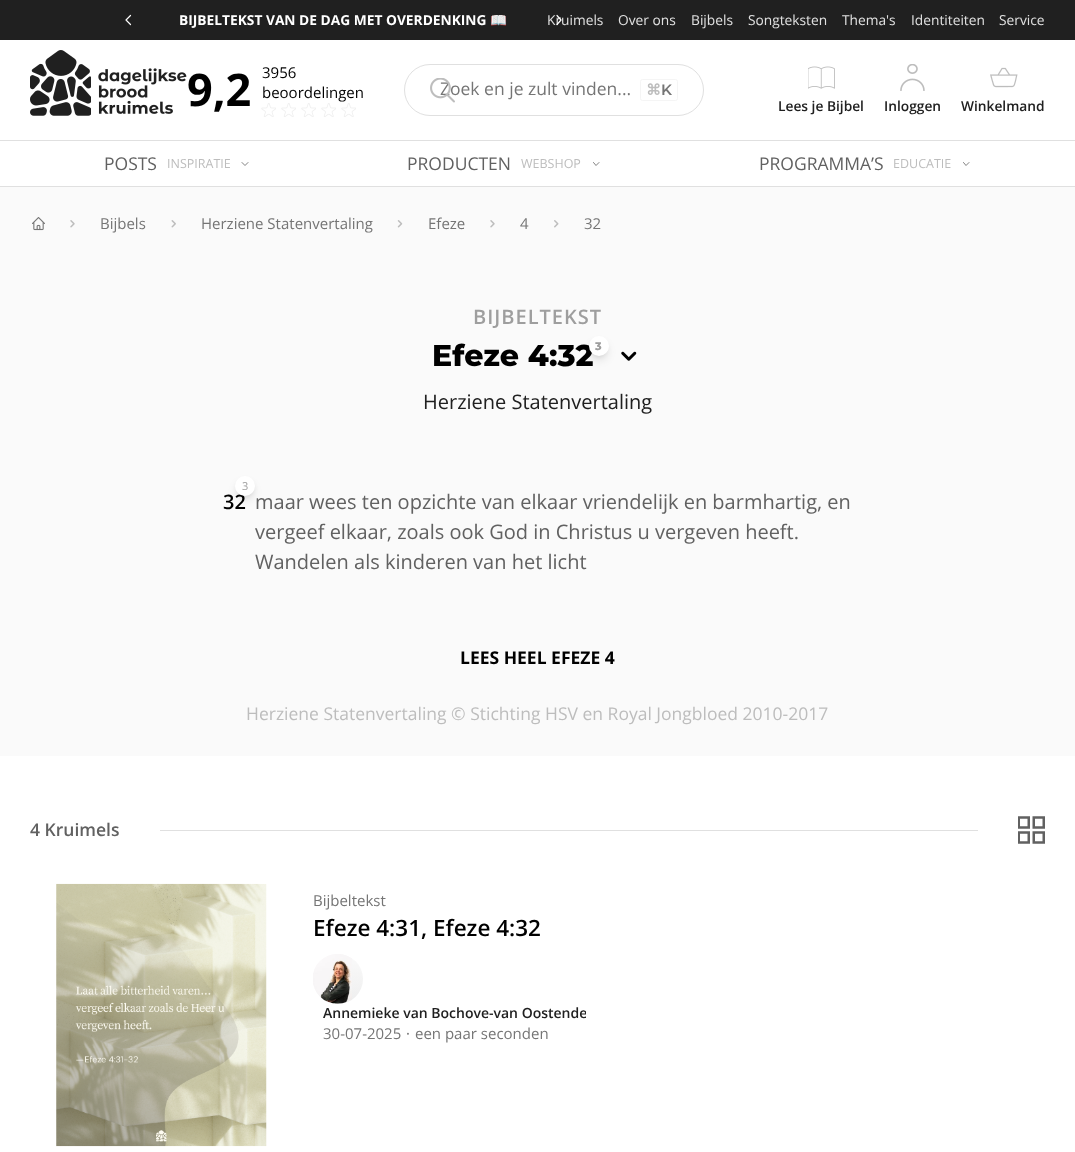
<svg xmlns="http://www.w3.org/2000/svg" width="1075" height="1152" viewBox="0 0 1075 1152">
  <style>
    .t1 { font: bold 13.75px Open Sans; fill: #fff; }
    .t2 { font: bold 13.75px Noto Color Emoji; fill: #fff; }
    .t3 { font: 13.75px Open Sans; fill: #e0e0e0; }
    .t4 { font: bold 45px Open Sans; fill: #000; }
    .t5 { font: 15px Open Sans; fill: #000; }
    .t6 { font: 17.5px Open Sans; fill: #757575; }
    .t7 { font: bold 15px DejaVu Sans; fill: #bdbdbd; }
    .t8 { font: 600 15px Montserrat; fill: #757575; }
    .t9 { font: 600 13.75px Open Sans; fill: #202020; }
    .t10 { font: 17.5px Open Sans; fill: #616161; }
    .t11 { font: 12.5px Open Sans; fill: #bdbdbd; }
    .t12 { font: 15px Open Sans; fill: #757575; }
    .t13 { font: 600 20px Open Sans; letter-spacing: 1px; fill: #9e9e9e; }
    .t14 { font: 800 30px Montserrat; fill: #000; }
    .t15 { font: 800 11px Montserrat; fill: #9e9e9e; }
    .t16 { font: 20px Open Sans; fill: #202020; }
    .t17 { font: 600 20px Open Sans; fill: #000; }
    .t18 { font: 11px Open Sans; fill: #9e9e9e; }
    .t19 { font: 20px Open Sans; fill: #616161; }
    .t20 { font: bold 17.5px Open Sans; fill: #000; }
    .t21 { font: 17.5px Open Sans; fill: #bdbdbd; }
    .t22 { font: 600 17.5px Open Sans; fill: #616161; }
    .t23 { font: 600 22.5px Open Sans; fill: #000; }
    .t24 { font: 600 14px Open Sans; fill: #202020; }
  </style>
  <defs>
    <linearGradient id="g1" gradientUnits="userSpaceOnUse" x1="338" y1="954" x2="338" y2="1004"><stop offset="0" stop-color="#fafafa"/><stop offset="1" stop-color="#eee"/></linearGradient>
    <clipPath id="clip1"><rect x="323" y="1004" width="263" height="20"/></clipPath>
  </defs>
  <rect width="100%" height="100%" fill="#fff"/>
  <rect x="0" y="0" width="1075" height="40" fill="#202020"/>
  <path d="M130.5 24.5L126 20L130.5 15.5" fill="none" stroke="#fff" stroke-width="1.2" stroke-linecap="round" stroke-linejoin="round"/>
  <text x="179" y="25" class="t1">BIJBELTEKST VAN DE DAG MET OVERDENKING</text>
  <text x="490" y="25" class="t2">📖</text>
  <text x="547" y="25" class="t3">Kruimels</text>
  <path d="M557 15.5L561 20L557 24.5" fill="none" stroke="#fff" stroke-width="1.2" stroke-linecap="round" stroke-linejoin="round"/>
  <text x="618" y="25" class="t3">Over ons</text>
  <text x="691" y="25" class="t3">Bijbels</text>
  <text x="748" y="25" class="t3">Songteksten</text>
  <text x="842" y="25" class="t3">Thema's</text>
  <text x="911" y="25" class="t3">Identiteiten</text>
  <text x="999" y="25" class="t3">Service</text>
  <image x="30" y="50" width="157" height="66" href="images/1.png"/>
  <text x="187" y="106" class="t4">9,2</text>
  <text x="262" y="78" class="t5">3956</text>
  <text x="262" y="98" class="t5">beoordelingen</text>
  <image x="261" y="103" width="15" height="14" href="images/2.png"/>
  <image x="281" y="103" width="15" height="14" href="images/2.png"/>
  <image x="301" y="103" width="15" height="14" href="images/2.png"/>
  <image x="321" y="103" width="15" height="14" href="images/2.png"/>
  <image x="341" y="103" width="15" height="14" href="images/2.png"/>
  <rect x="404.5" y="64.5" width="299" height="51" rx="25.5" fill="none" stroke="#e0e0e0"/>
  <text x="440" y="95" class="t6">Zoek en je zult vinden...</text>
  <image x="430" y="78" width="25" height="25" href="images/3.png"/>
  <rect x="640.5" y="79.5" width="37" height="21" rx="2" fill="none" stroke="#f5f5f5"/>
  <text x="646" y="95" class="t7">⌘</text>
  <text x="661" y="95" class="t8">K</text>
  <image x="808" y="66" width="27" height="23" href="images/4.png"/>
  <text x="778" y="111" class="t9">Lees je Bijbel</text>
  <image x="900" y="64" width="25" height="27" href="images/5.png"/>
  <text x="884" y="111" class="t9">Inloggen</text>
  <image x="990" y="67" width="28" height="21" href="images/6.png"/>
  <text x="961" y="111" class="t9">Winkelmand</text>
  <rect x="0" y="140" width="1075" height="1" fill="#e0e0e0"/>
  <rect x="0" y="186" width="1075" height="1" fill="#e0e0e0"/>
  <text x="104" y="170" class="t10">POSTS</text>
  <text x="167" y="168" class="t11">INSPIRATIE</text>
  <path d="M248 162.5L245 165.5L242 162.5" fill="none" stroke="#616161" stroke-width="0.8" stroke-linecap="round" stroke-linejoin="round"/>
  <text x="407" y="170" class="t10">PRODUCTEN</text>
  <text x="521" y="168" class="t11">WEBSHOP</text>
  <path d="M599 162.5L596 165.5L593.5 162.5" fill="none" stroke="#616161" stroke-width="0.8" stroke-linecap="round" stroke-linejoin="round"/>
  <text x="759" y="170" class="t10">PROGRAMMA’S</text>
  <text x="893" y="168" class="t11">EDUCATIE</text>
  <path d="M969 162.5L966 165.5L963.5 162.5" fill="none" stroke="#616161" stroke-width="0.8" stroke-linecap="round" stroke-linejoin="round"/>
  <rect x="0" y="187" width="1075" height="569" fill="#fafafa"/>
  <image x="32" y="217" width="13" height="14" href="images/7.png"/>
  <image x="70" y="220" width="5" height="8" href="images/8.png"/>
  <text x="100" y="229" class="t12">Bijbels</text>
  <image x="171" y="220" width="5" height="8" href="images/9.png"/>
  <text x="201" y="229" class="t12">Herziene Statenvertaling</text>
  <image x="397" y="220" width="6" height="8" href="images/10.png"/>
  <text x="428" y="229" class="t12">Efeze</text>
  <image x="490" y="220" width="5" height="8" href="images/8.png"/>
  <text x="520" y="229" class="t12">4</text>
  <image x="554" y="220" width="5" height="8" href="images/11.png"/>
  <text x="584" y="229" class="t12">32</text>
  <text x="473" y="324" class="t13">BIJBELTEKST</text>
  <text x="432" y="366" class="t14">Efeze 4:32</text>
  <rect x="591" y="341" width="15" height="15" rx="7.5" fill="#0000001a" filter="blur(2.5px)"/>
  <rect x="590" y="343" width="18" height="17" rx="8.5" fill="#0000001a" filter="blur(4px)"/>
  <circle cx="599" cy="346" r="10" fill="#fff"/>
  <text x="595" y="350" class="t15">3</text>
  <image x="621" y="351" width="16" height="10" href="images/12.png"/>
  <text x="423" y="409" class="t16">Herziene Statenvertaling</text>
  <rect x="238" y="481" width="15" height="15" rx="7.5" fill="#0000001a" filter="blur(2.5px)"/>
  <rect x="236" y="483" width="18" height="17" rx="8.5" fill="#0000001a" filter="blur(4px)"/>
  <text x="223" y="509" class="t17">32</text>
  <circle cx="245" cy="486" r="10" fill="#fff"/>
  <text x="242" y="490" class="t18">3</text>
  <text x="255" y="509" class="t19">maar wees ten opzichte van elkaar vriendelijk en barmhartig, en</text>
  <text x="255" y="539" class="t19">vergeef elkaar, zoals ook God in Christus u vergeven heeft.</text>
  <text x="255" y="569" class="t19">Wandelen als kinderen van het licht</text>
  <text x="460" y="664" class="t20">LEES HEEL EFEZE 4</text>
  <text x="246" y="720" class="t21">Herziene Statenvertaling © Stichting HSV en Royal Jongbloed 2010-2017</text>
  <text x="30" y="836" class="t22">4 Kruimels</text>
  <rect x="160" y="830" width="818" height="1" fill="#e0e0e0"/>
  <image x="1018" y="816" width="27" height="28" href="images/13.png"/>
  <image x="56" y="883" width="211" height="264" href="images/14.png"/>
  <text x="313" y="906" class="t12">Bijbeltekst</text>
  <text x="313" y="936" class="t23">Efeze 4:31, Efeze 4:32</text>
  <circle cx="338" cy="979" r="25" fill="url(#g1)"/>
  <image x="313" y="954" width="39" height="50" href="images/15.png"/>
  <g clip-path="url(#clip1)">
    <text x="323" y="1018" class="t24">Annemieke van Bochove-van Oostende</text>
  </g>
  <text x="323" y="1039" class="t12">30-07-2025</text>
  <text x="406" y="1039" class="t12">·</text>
  <text x="415" y="1039" class="t12">een paar seconden</text>
</svg>
